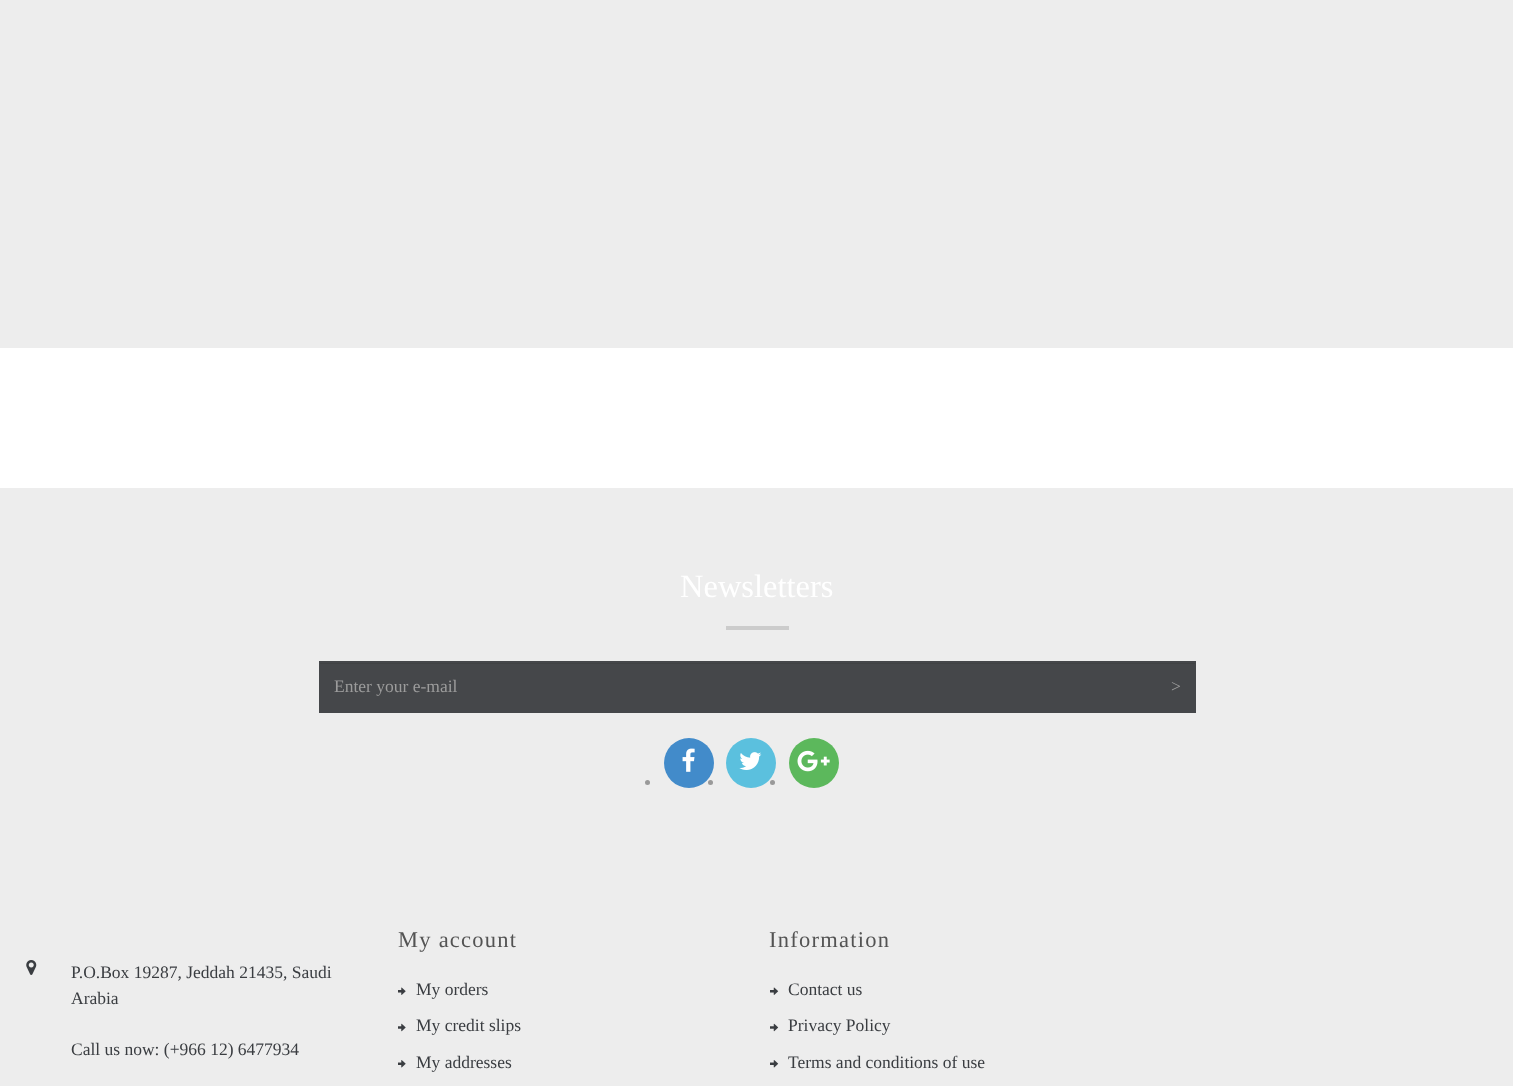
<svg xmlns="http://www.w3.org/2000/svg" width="1513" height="1086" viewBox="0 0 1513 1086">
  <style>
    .t1 { font: 32.5px Liberation Serif; fill: #fff; }
    .t2 { font: 17.5px Liberation Serif; fill: #9c9c9c; }
    .t3 { font: 17.5px Liberation Serif; fill: #3a3d41; }
    .t4 { font: 22.5px Liberation Serif; letter-spacing: 1.25px; fill: #535353; }
  </style>
  <rect width="100%" height="100%" fill="#ededed"/>
  <rect x="0" y="348" width="1513" height="140" fill="#fff"/>
  <text x="680" y="597" class="t1">Newsletters</text>
  <rect x="726" y="626" width="63" height="4" fill="#ccc"/>
  <rect x="319" y="661" width="877" height="52" fill="#45474a"/>
  <rect x="320" y="663" width="875" height="1" fill="#404244"/>
  <text x="334" y="692" class="t2">Enter your e-mail</text>
  <text x="1171" y="692" class="t2">&gt;</text>
  <circle cx="647.5" cy="782.5" r="2.5" fill="#999"/>
  <circle cx="710.5" cy="782.5" r="2.5" fill="#999"/>
  <circle cx="689" cy="763" r="25" fill="#428bca"/>
  <image x="682" y="748" width="13" height="24" href="images/1.png"/>
  <circle cx="772.5" cy="782.5" r="2.5" fill="#999"/>
  <circle cx="751" cy="763" r="25" fill="#5bc0de"/>
  <image x="739" y="752" width="23" height="18" href="images/2.png"/>
  <circle cx="814" cy="763" r="25" fill="#5cb85c"/>
  <image x="797" y="750" width="33" height="22" href="images/3.png"/>
  <image x="26" y="960" width="11" height="15" href="images/4.png"/>
  <text x="71" y="978" class="t3">P.O.Box 19287, Jeddah 21435, Saudi</text>
  <text x="71" y="1004" class="t3">Arabia</text>
  <text x="71" y="1055" class="t3">Call us now: (+966 12) 6477934</text>
  <text x="398" y="947" class="t4">My account</text>
  <image x="398" y="987" width="8" height="8" href="images/5.png"/>
  <text x="416" y="995" class="t3">My orders</text>
  <image x="398" y="1023" width="8" height="9" href="images/6.png"/>
  <text x="416" y="1031" class="t3">My credit slips</text>
  <image x="398" y="1060" width="8" height="8" href="images/7.png"/>
  <text x="416" y="1068" class="t3">My addresses</text>
  <text x="769" y="947" class="t4">Information</text>
  <image x="770" y="987" width="9" height="8" href="images/8.png"/>
  <text x="788" y="995" class="t3">Contact us</text>
  <image x="770" y="1023" width="9" height="9" href="images/9.png"/>
  <text x="788" y="1031" class="t3">Privacy Policy</text>
  <image x="770" y="1060" width="9" height="8" href="images/10.png"/>
  <text x="788" y="1068" class="t3">Terms and conditions of use</text>
</svg>
